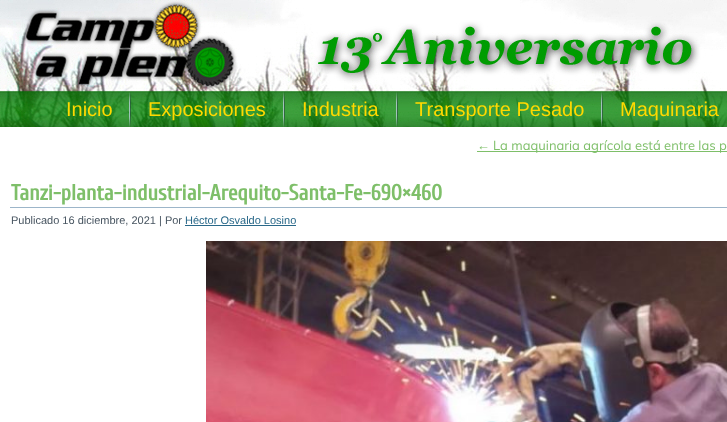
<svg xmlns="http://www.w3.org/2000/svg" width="727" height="422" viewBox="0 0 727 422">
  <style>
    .t1 { font: 20px Liberation Sans; fill: #ffd900; }
    .t2 { font: 13px Liberation Sans; fill: #7ebf69; }
    .t3 { font: 13px Muli; fill: #7ebf69; }
    .t4 { font: bold 22px Cuprum; fill: #7ebf69; }
    .t5 { font: 11px Liberation Sans; fill: #485561; }
    .t6 { font: 11px Liberation Sans; fill: #296889; }
  </style>
  <rect width="100%" height="100%" fill="#fff"/>
  <image x="0" y="0" width="727" height="127" href="images/1.png"/>
  <text x="66" y="116" class="t1">Inicio</text>
  <image x="129" y="92" width="2" height="35" href="images/2.png"/>
  <text x="148" y="116" class="t1">Exposiciones</text>
  <image x="283" y="92" width="2" height="35" href="images/3.png"/>
  <text x="302" y="116" class="t1">Industria</text>
  <image x="396" y="92" width="2" height="35" href="images/4.png"/>
  <text x="415" y="116" class="t1">Transporte Pesado</text>
  <image x="601" y="92" width="2" height="35" href="images/5.png"/>
  <text x="620" y="116" class="t1">Maquinaria</text>
  <text x="477" y="150" class="t2">←</text>
  <rect x="477" y="151" width="250" height="1" fill="#7ebf69"/>
  <text x="493" y="150" class="t3">La maquinaria agrícola está entre las p</text>
  <rect x="10" y="207" width="717" height="1" fill="#9cb5c9"/>
  <text x="11" y="200" class="t4">Tanzi-planta-industrial-Arequito-Santa-Fe-690×460</text>
  <text x="11" y="224" class="t5">Publicado 16 diciembre, 2021 | Por</text>
  <text x="185" y="224" class="t6">Héctor Osvaldo Losino</text>
  <rect x="185" y="225" width="111" height="1" fill="#296889"/>
  <image x="206" y="241" width="521" height="181" href="images/6.png"/>
</svg>
